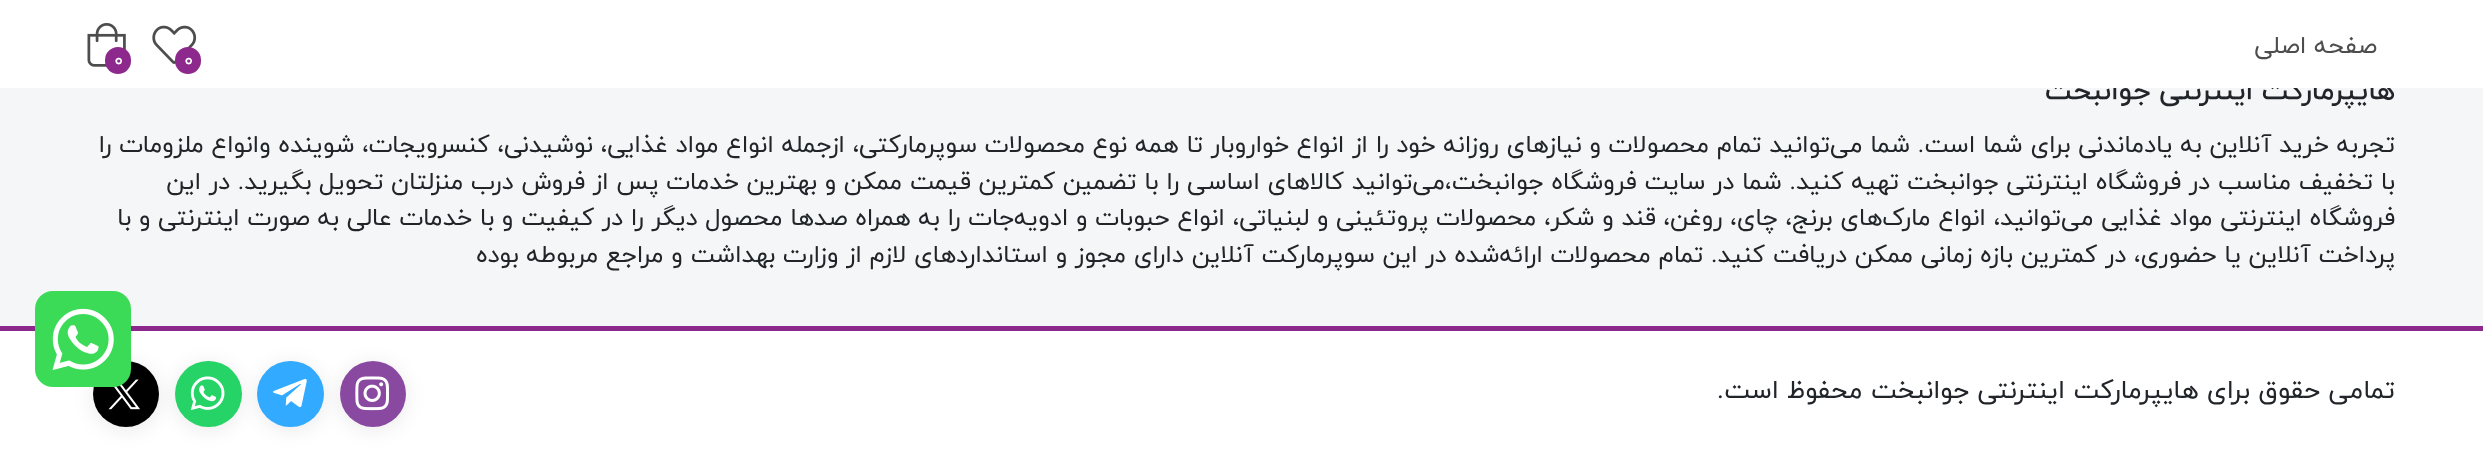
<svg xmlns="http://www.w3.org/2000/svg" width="2483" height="456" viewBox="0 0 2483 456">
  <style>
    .t1 { font: 500 28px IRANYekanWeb; direction: rtl; fill: #212529; }
    .t2 { font: 24.5px IRANYekanWeb; direction: rtl; fill: #4d4d4d; }
    .t3 { font: 19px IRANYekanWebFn; fill: #fff; }
    .t4 { font: 24.5px IRANYekanWeb; direction: rtl; fill: #212529; }
    .t5 { font: 26.25px IRANYekanWeb; direction: rtl; fill: #212529; }
  </style>
  <rect width="100%" height="100%" fill="#f4f6f7"/>
  <text x="2395" y="99" class="t1">هایپرمارکت اینترنتی جوانبخت</text>
  <rect x="0" y="0" width="2483" height="88" fill="#fff"/>
  <text x="2377" y="53" class="t2">صفحه اصلی</text>
  <image x="152" y="25" width="45" height="39" href="images/1.png"/>
  <rect x="175" y="47" width="26" height="27" rx="13" fill="#8d298c"/>
  <text x="184" y="66" class="t3">0</text>
  <image x="87" y="23" width="39" height="44" href="images/2.png"/>
  <rect x="105" y="47" width="26" height="27" rx="13" fill="#8d298c"/>
  <text x="114" y="66" class="t3">0</text>
  <text x="2395" y="152" class="t4">تجربه خرید آنلاین به ‌یادماندنی برای شما است. شما می‌توانید تمام محصولات و نیازهای روزانه خود را از انواع خواروبار تا همه نوع محصولات سوپرمارکتی، ازجمله انواع مواد غذایی، نوشیدنی، کنسرویجات، شوینده وانواع ملزومات را</text>
  <text x="2395" y="189" class="t4">با تخفیف مناسب در فروشگاه اینترنتی جوانبخت تهیه کنید. شما در سایت فروشگاه جوانبخت،می‌توانید کالاهای اساسی را با تضمین کمترین قیمت ممکن و بهترین خدمات پس از فروش درب منزلتان تحویل بگیرید. در این</text>
  <text x="2395" y="225" class="t4">فروشگاه اینترنتی مواد غذایی می‌توانید، انواع مارک‌های برنج، چای، روغن، قند و شکر، محصولات پروتئینی و لبنیاتی، انواع حبوبات و ادویه‌جات را به همراه صدها محصول دیگر را در کیفیت و با خدمات عالی به‌ صورت اینترنتی و با</text>
  <text x="2395" y="262" class="t4">پرداخت آنلاین یا حضوری، در کمترین بازه زمانی ممکن دریافت کنید. تمام محصولات ارائه‌شده در این سوپرمارکت آنلاین دارای مجوز و استانداردهای لازم از وزارت بهداشت و مراجع مربوطه بوده</text>
  <rect x="0" y="331" width="2483" height="125" fill="#fff"/>
  <rect x="0" y="326" width="2483" height="5" fill="#8d298c"/>
  <rect x="91" y="362" width="70" height="70" rx="35" fill="#00000012" filter="blur(9px)"/>
  <circle cx="126" cy="394" r="33" fill="#000"/>
  <image x="108" y="379" width="32" height="31" href="images/7.png"/>
  <rect x="35" y="291" width="96" height="96" rx="18" fill="#3bda57"/>
  <image x="52" y="308" width="62" height="63" href="images/3.png"/>
  <text x="2395" y="398" class="t5">تمامی حقوق برای هایپرمارکت اینترنتی جوانبخت محفوظ است.</text>
  <rect x="173" y="362" width="70" height="70" rx="35" fill="#00000012" filter="blur(9px)"/>
  <rect x="175" y="361" width="67" height="66" rx="33" fill="#25d366"/>
  <rect x="256" y="362" width="70" height="70" rx="35" fill="#00000012" filter="blur(9px)"/>
  <rect x="257" y="361" width="67" height="66" rx="33" fill="#31aaff"/>
  <rect x="338" y="362" width="70" height="70" rx="35" fill="#00000012" filter="blur(9px)"/>
  <circle cx="373" cy="394" r="33" fill="#8a49a1"/>
  <image x="355" y="376" width="34" height="35" href="images/4.png"/>
  <image x="273" y="378" width="34" height="30" href="images/5.png"/>
  <image x="190" y="376" width="35" height="35" href="images/6.png"/>
</svg>
